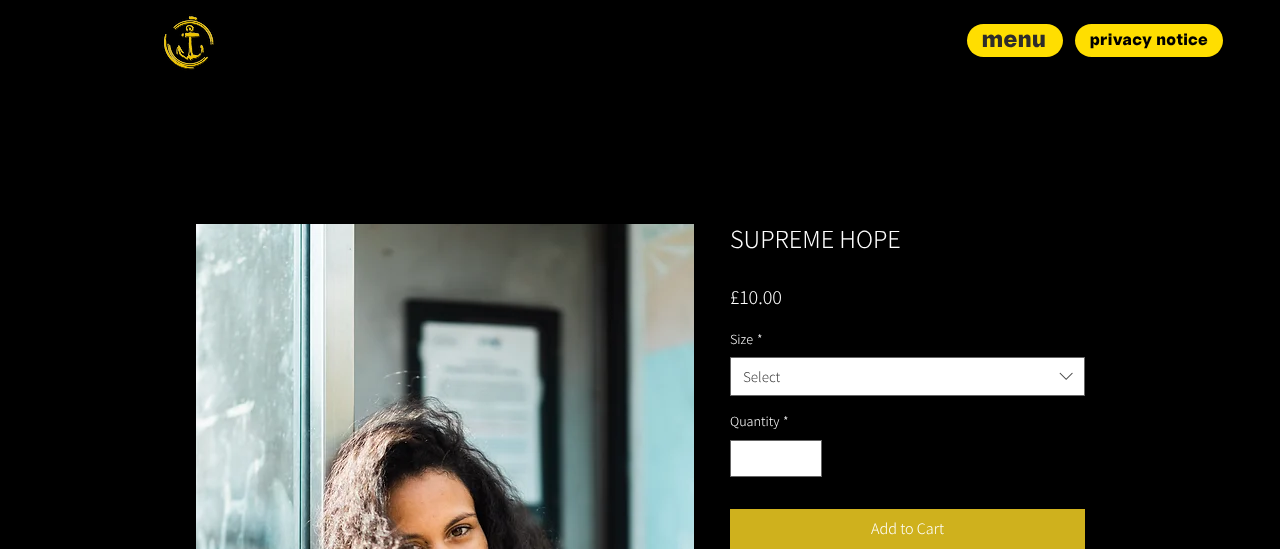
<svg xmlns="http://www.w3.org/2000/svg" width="1280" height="549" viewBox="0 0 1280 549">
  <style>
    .t1 { font: 800 23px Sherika; letter-spacing: 1px; fill: #2e2c2a; }
    .t2 { font: 800 16px Sherika; letter-spacing: 0.75px; fill: #000; }
    .t3 { font: 300 26px Assistant; fill: #fff; }
    .t4 { font: 300 20px Assistant; fill: #fff; }
    .t5 { font: 300 14px Assistant; fill: #fff; }
    .t6 { font: 300 15px Assistant; fill: #444; }
    .t7 { font: 300 16px Assistant; fill: #fff; }
  </style>
  <rect width="100%" height="100%" fill="#000"/>
  <image x="162" y="14" width="54" height="57" href="images/1.png"/>
  <rect x="967" y="24" width="96" height="33" rx="16.5" fill="#ffde00"/>
  <text x="982" y="47" class="t1">menu</text>
  <rect x="1075" y="24" width="148" height="33" rx="16.5" fill="#ffde00"/>
  <text x="1090" y="45" class="t2">privacy notice</text>
  <image x="196" y="224" width="498" height="325" href="images/2.png"/>
  <text x="730" y="248" class="t3">SUPREME HOPE</text>
  <text x="730" y="304" class="t4">£10.00</text>
  <text x="730" y="344" class="t5">Size</text>
  <text x="757" y="344" class="t5">*</text>
  <rect x="730.5" y="357.5" width="354" height="38" fill="#fff" stroke="#666"/>
  <text x="743" y="382" class="t6">Select</text>
  <image x="1059" y="372" width="14" height="8" href="images/3.png"/>
  <text x="730" y="426" class="t5">Quantity</text>
  <text x="783" y="426" class="t5">*</text>
  <rect x="730.5" y="440.5" width="91" height="36" fill="#fff" stroke="#666"/>
  <rect x="730" y="509" width="355" height="40" fill="#cfb11d"/>
  <text x="871" y="534" class="t7">Add to Cart</text>
</svg>
